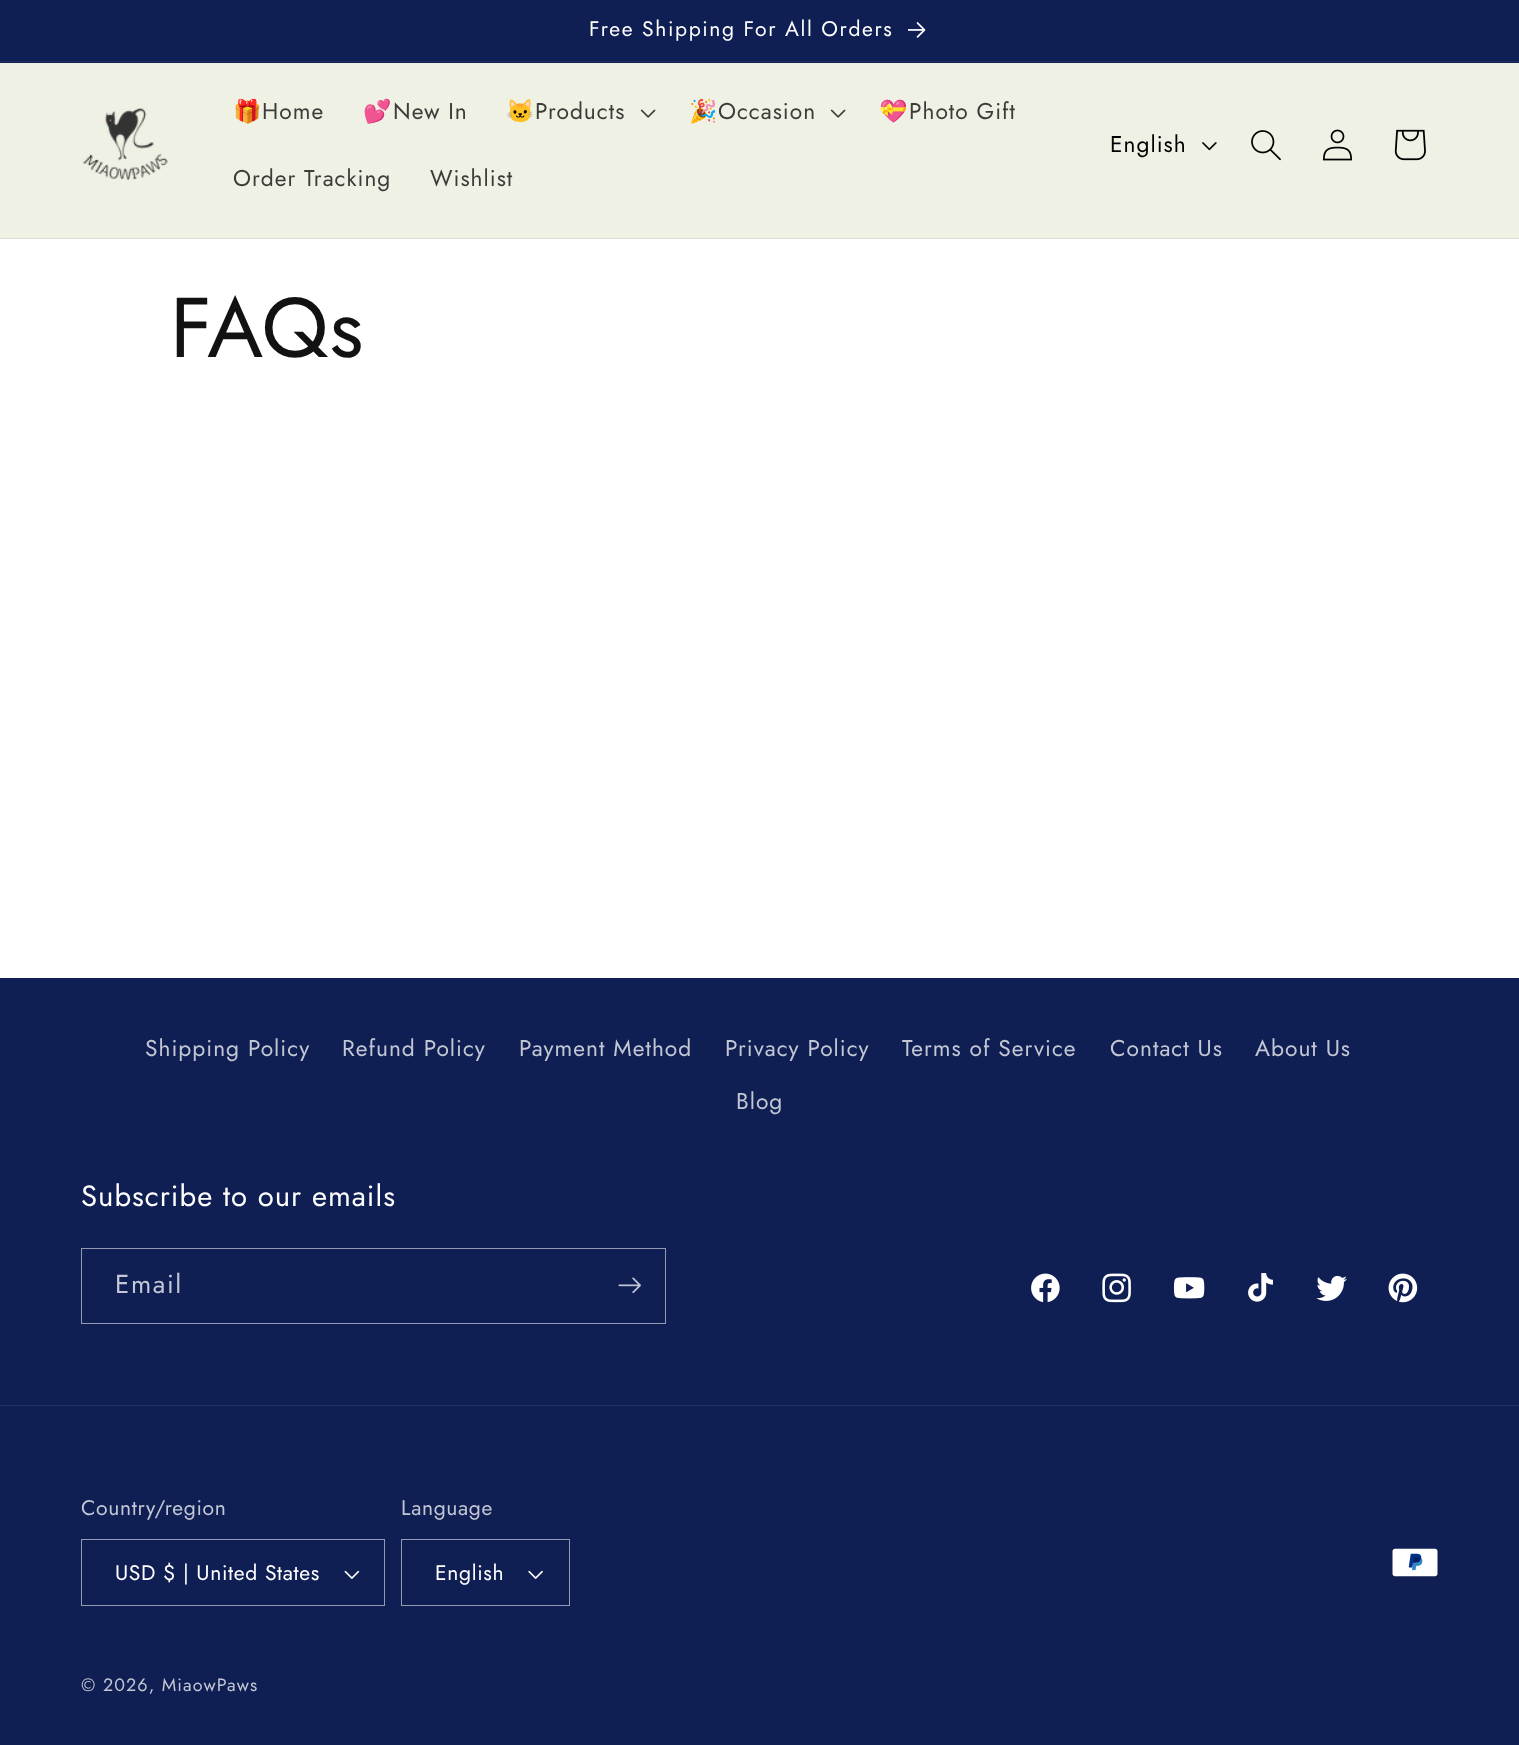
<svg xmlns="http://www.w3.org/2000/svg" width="1519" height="1745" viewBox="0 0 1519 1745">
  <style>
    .t1 { font: 21.1px Jost; letter-spacing: 1.6px; fill: #fff; }
    .t2 { font: 22.75px Noto Color Emoji; letter-spacing: 1px; fill: #3c3c39; }
    .t3 { font: 22.75px Jost; letter-spacing: 1px; fill: #3c3c39; }
    .t4 { font: 22.75px Jost; letter-spacing: 1px; fill: #000; }
    .t5 { font: 84.5px Jost; letter-spacing: 1px; fill: #121212; }
    .t6 { font: 22.75px Jost; letter-spacing: 1px; fill: #c3c7d4; }
    .t7 { font: 29.25px Jost; letter-spacing: 1px; fill: #fff; }
    .t8 { font: 26px Jost; letter-spacing: 1.6px; fill: #c3c7d4; }
    .t9 { font: 21.1px Jost; letter-spacing: 0.65px; fill: #c3c7d4; }
    .t10 { font: 21.1px Jost; letter-spacing: 0.65px; fill: #fff; }
    .t11 { font: 17.9px Jost; letter-spacing: 1.1px; fill: #c3c7d4; }
  </style>
  <rect width="100%" height="100%" fill="#fff"/>
  <rect x="0" y="0" width="1519" height="63" fill="#0f1e53"/>
  <rect x="0" y="61" width="1519" height="1" fill="#223061"/>
  <text x="589" y="36" class="t1">Free Shipping For All Orders</text>
  <image x="908" y="22" width="18" height="16" href="images/1.png"/>
  <rect x="0" y="63" width="1519" height="175" fill="#eff1e4"/>
  <rect x="0" y="238" width="1519" height="1" fill="#dcded2"/>
  <image x="82" y="107" width="86" height="74" href="images/2.png"/>
  <text x="233" y="119" class="t2">🎁</text>
  <text x="262" y="119" class="t3">Home</text>
  <text x="363" y="119" class="t2">💕</text>
  <text x="393" y="119" class="t3">New In</text>
  <text x="506" y="119" class="t2">🐱</text>
  <text x="535" y="119" class="t3">Products</text>
  <image x="640" y="109" width="16" height="9" href="images/3.png"/>
  <text x="689" y="119" class="t2">🎉</text>
  <text x="718" y="119" class="t3">Occasion</text>
  <image x="830" y="109" width="16" height="9" href="images/3.png"/>
  <text x="879" y="119" class="t2">💝</text>
  <text x="909" y="119" class="t3">Photo Gift</text>
  <text x="233" y="186" class="t3">Order Tracking</text>
  <text x="430" y="186" class="t3">Wishlist</text>
  <text x="1110" y="152" class="t4">English</text>
  <image x="1202" y="142" width="15" height="9" href="images/4.png"/>
  <image x="1251" y="130" width="30" height="31" href="images/5.png"/>
  <image x="1322" y="129" width="31" height="32" href="images/6.png"/>
  <image x="1394" y="129" width="32" height="32" href="images/7.png"/>
  <text x="170" y="357" class="t5">FAQs</text>
  <rect x="0" y="978" width="1519" height="767" fill="#0f1e53"/>
  <text x="145" y="1056" class="t6">Shipping Policy</text>
  <text x="342" y="1056" class="t6">Refund Policy</text>
  <text x="519" y="1056" class="t6">Payment Method</text>
  <text x="725" y="1056" class="t6">Privacy Policy</text>
  <text x="902" y="1056" class="t6">Terms of Service</text>
  <text x="1110" y="1056" class="t6">Contact Us</text>
  <text x="1255" y="1056" class="t6">About Us</text>
  <text x="736" y="1109" class="t6">Blog</text>
  <text x="81" y="1206" class="t7">Subscribe to our emails</text>
  <rect x="81.5" y="1248.5" width="584" height="75" fill="none" stroke="#939ab2"/>
  <text x="115" y="1293" class="t8">Email</text>
  <image x="618" y="1277" width="23" height="17" href="images/8.png"/>
  <image x="1031" y="1273" width="29" height="30" href="images/9.png"/>
  <image x="1102" y="1273" width="29" height="30" href="images/10.png"/>
  <image x="1173" y="1277" width="32" height="22" href="images/11.png"/>
  <image x="1248" y="1273" width="25" height="29" href="images/12.png"/>
  <image x="1316" y="1275" width="31" height="26" href="images/13.png"/>
  <image x="1388" y="1273" width="30" height="30" href="images/14.png"/>
  <rect x="0" y="1405" width="1519" height="1" fill="#223061"/>
  <text x="81" y="1515" class="t9">Country/region</text>
  <image x="344" y="1570" width="16" height="9" href="images/15.png"/>
  <rect x="81.5" y="1539.5" width="303" height="66" fill="none" stroke="#939ab2"/>
  <text x="115" y="1580" class="t10">USD $ | United States</text>
  <text x="401" y="1515" class="t9">Language</text>
  <image x="528" y="1570" width="15" height="9" href="images/16.png"/>
  <rect x="401.5" y="1539.5" width="168" height="66" fill="none" stroke="#939ab2"/>
  <text x="435" y="1580" class="t10">English</text>
  <image x="1391" y="1548" width="48" height="29" href="images/17.png"/>
  <text x="81" y="1691" class="t11">© 2026, MiaowPaws</text>
</svg>
